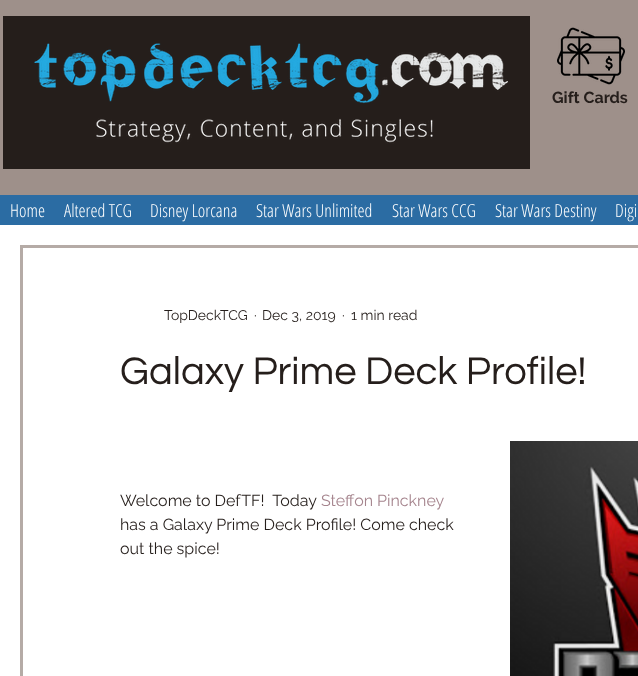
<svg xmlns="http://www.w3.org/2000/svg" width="638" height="676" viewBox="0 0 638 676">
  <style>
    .t1 { font: bold 16px Raleway; fill: #251e1b; }
    .t2 { font: 300 18px Open Sans Condensed; fill: #fff; }
    .t3 { font: 14px Raleway; fill: #251e1b; }
    .t4 { font: 40px Questrial; fill: #251e1b; }
    .t5 { font: 16px Raleway; fill: #251e1b; }
    .t6 { font: 16px Raleway; fill: #a5848d; }
  </style>
  <rect width="100%" height="100%" fill="#9e908a"/>
  <rect x="3" y="16" width="527" height="153" fill="#251e1b"/>
  <image x="34" y="43" width="474" height="61" href="images/1.png"/>
  <image x="96" y="118" width="337" height="26" href="images/2.png"/>
  <image x="557" y="27" width="68" height="58" href="images/3.png"/>
  <text x="552" y="103" class="t1">Gift Cards</text>
  <rect x="0" y="195" width="638" height="30" fill="#2b6ca3"/>
  <text x="10" y="217" class="t2">Home</text>
  <text x="64" y="217" class="t2">Altered TCG</text>
  <text x="150" y="217" class="t2">Disney Lorcana</text>
  <text x="256" y="217" class="t2">Star Wars Unlimited</text>
  <text x="392" y="217" class="t2">Star Wars CCG</text>
  <text x="495" y="217" class="t2">Star Wars Destiny</text>
  <text x="615" y="217" class="t2">Digi</text>
  <rect x="0" y="225" width="638" height="451" fill="#fff"/>
  <rect x="21.5" y="246.5" width="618" height="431" fill="none" stroke="#b5aba6" stroke-width="3"/>
  <text x="164" y="320" class="t3">TopDeckTCG</text>
  <text x="254" y="320" class="t3">·</text>
  <text x="262" y="320" class="t3">Dec 3, 2019</text>
  <text x="342" y="320" class="t3">·</text>
  <text x="351" y="320" class="t3">1 min read</text>
  <text x="120" y="384" class="t4">Galaxy Prime Deck Profile!</text>
  <text x="120" y="506" class="t5" xml:space="preserve">Welcome to DefTF!  Today</text>
  <text x="321" y="506" class="t6">Steffon Pinckney</text>
  <text x="120" y="530" class="t5">has a Galaxy Prime Deck Profile! Come check</text>
  <text x="120" y="554" class="t5">out the spice!</text>
  <image x="510" y="441" width="128" height="235" href="images/4.png"/>
</svg>
